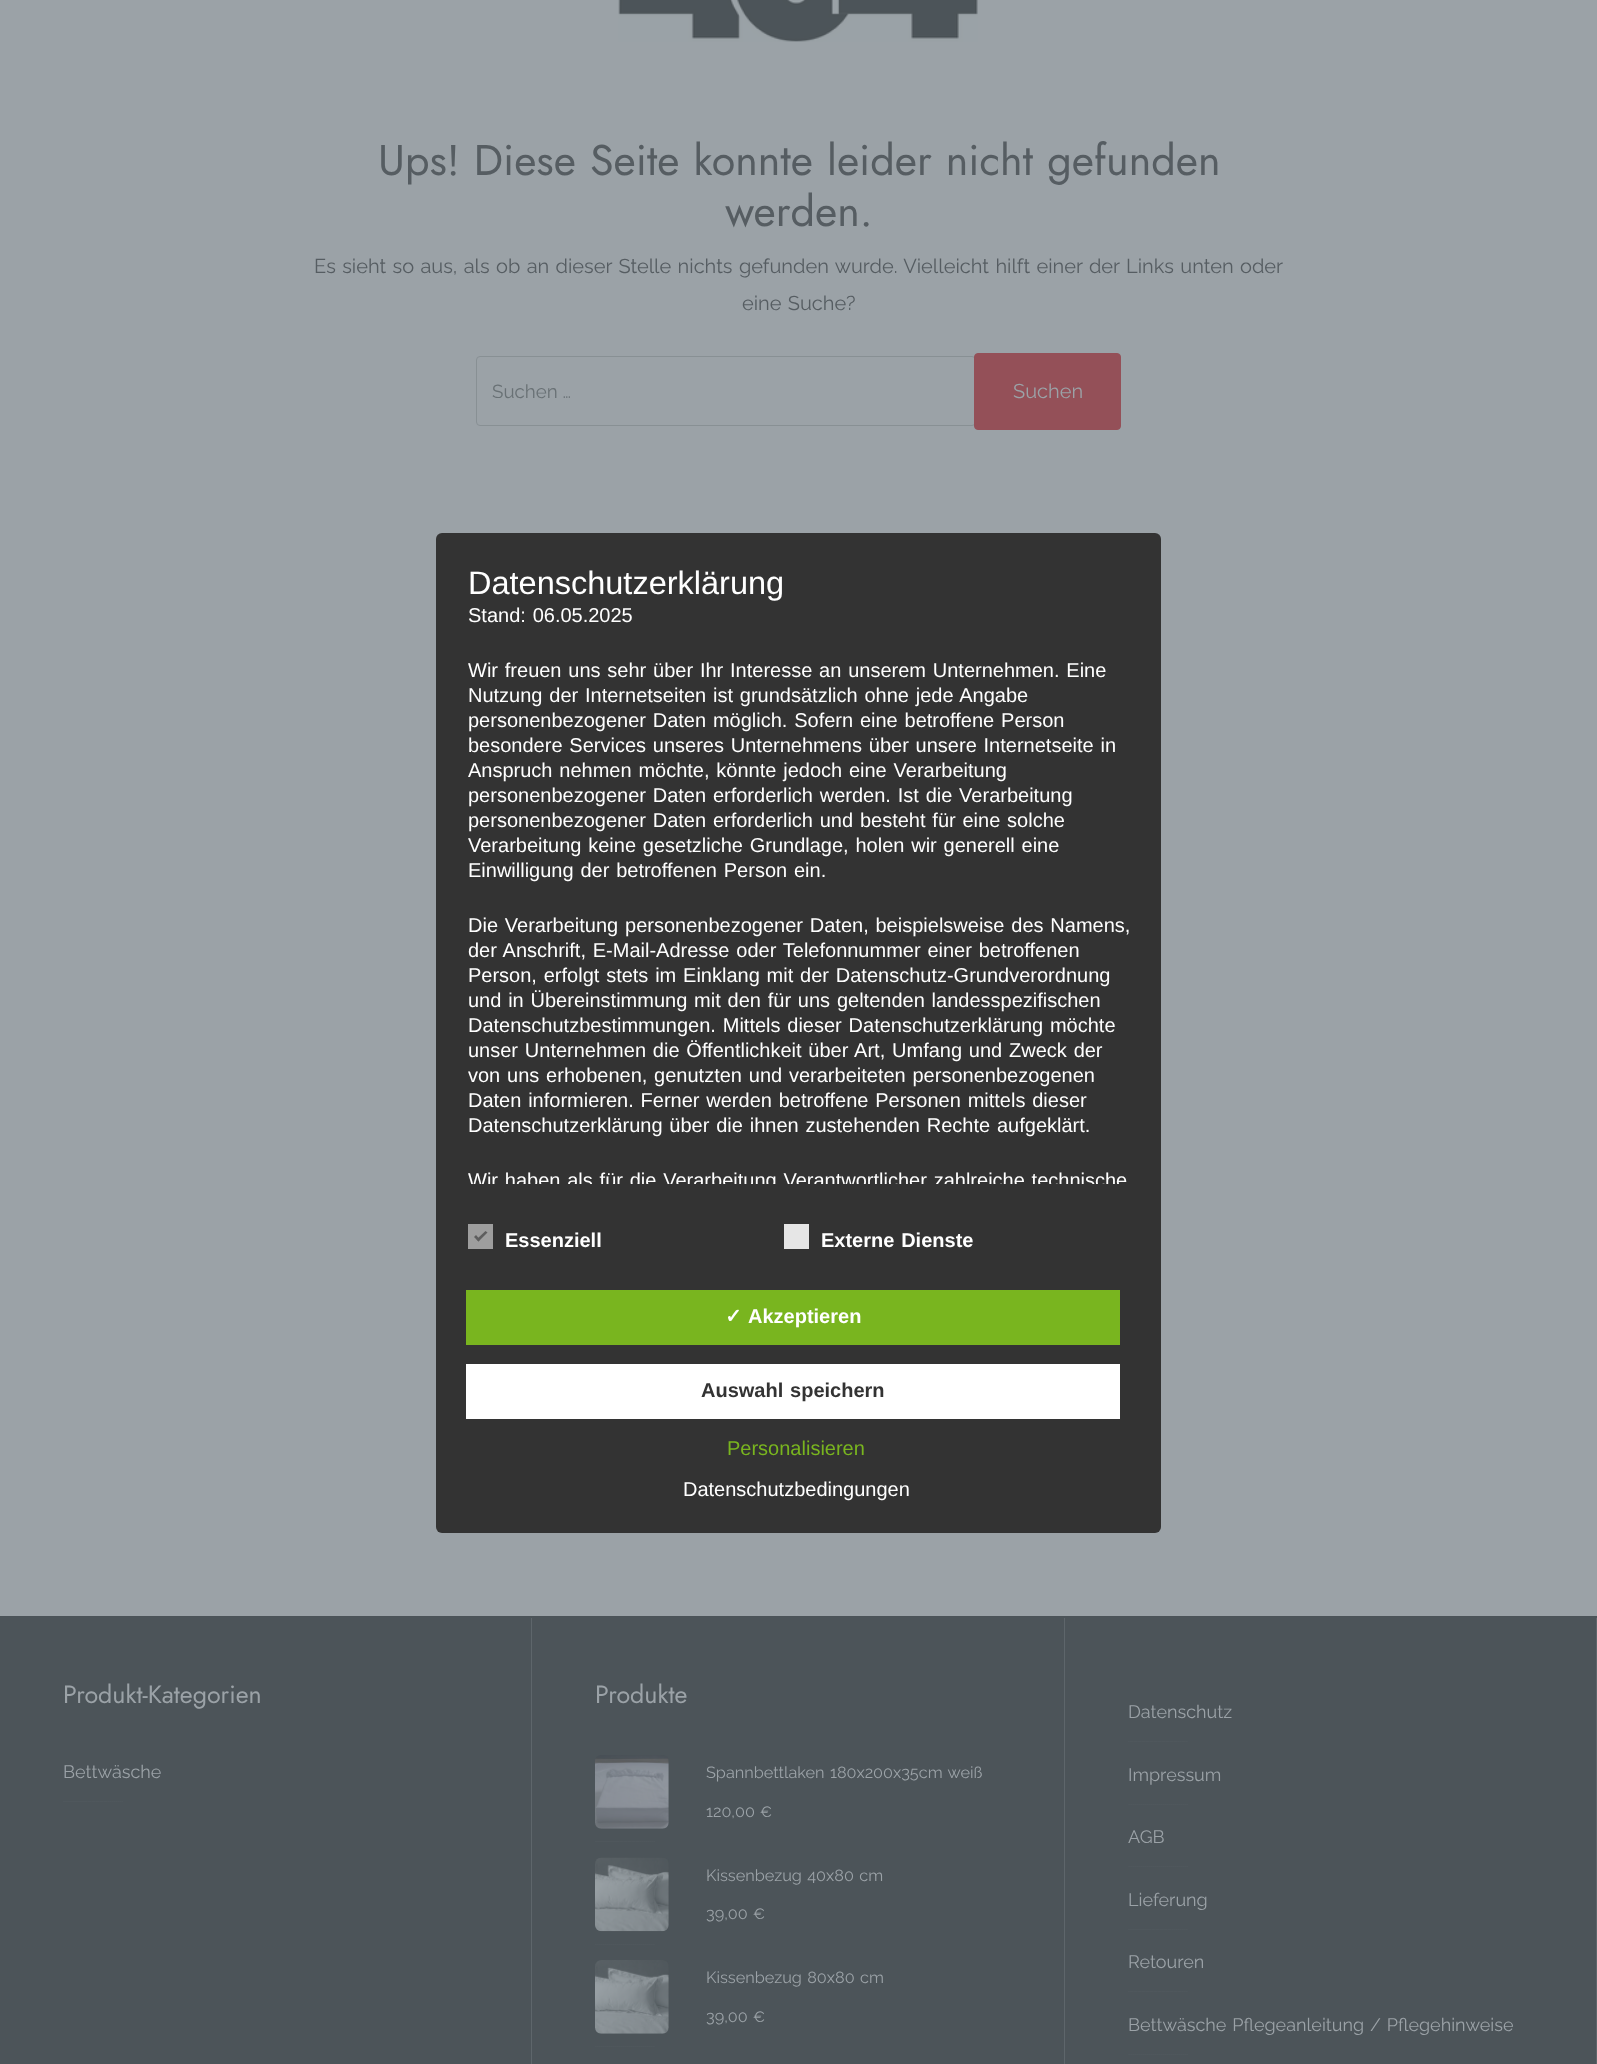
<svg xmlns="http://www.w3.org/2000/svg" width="1597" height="2064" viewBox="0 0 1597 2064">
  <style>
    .t1 { font: 43px Jost; fill: #565d62; }
    .t2 { font: 20px Raleway; fill: #565d62; }
    .t3 { font: 18.75px Raleway; fill: #697175; }
    .t4 { font: 20px Raleway; fill: #9ba2a7; }
    .t5 { font: 25px Jost; fill: #9ba2a7; }
    .t6 { font: 18px Raleway; fill: #9ba2a7; }
    .t7 { font: 16.25px Raleway; fill: #9ba2a7; }
    .t8 { font: 15px Raleway; fill: #9ba2a7; }
    .t9 { font: 32.5px Liberation Sans; fill: #fff; }
    .t10 { font: 20px Liberation Sans; fill: #fff; }
    .t11 { font: bold 20px Liberation Sans; fill: #fff; }
    .t12 { font: bold 20px DejaVu Sans; fill: #fff; }
    .t13 { font: bold 20px Liberation Sans; fill: #333; }
    .t14 { font: 20px Liberation Sans; fill: #79b51f; }
  </style>
  <defs>
    <radialGradient id="g1" gradientUnits="userSpaceOnUse" cx="0" cy="0" r="1" gradientTransform="matrix(575 0 0 0.9 63 1802)"><stop offset="0" stop-color="#596166"/><stop offset="0.7" stop-color="#4c5459"/></radialGradient>
    <radialGradient id="g2" gradientUnits="userSpaceOnUse" cx="0" cy="0" r="1" gradientTransform="matrix(575 0 0 0.9 595 1842)"><stop offset="0" stop-color="#596166"/><stop offset="0.7" stop-color="#4c5459"/></radialGradient>
    <radialGradient id="g3" gradientUnits="userSpaceOnUse" cx="0" cy="0" r="1" gradientTransform="matrix(575 0 0 0.9 595 1944)"><stop offset="0" stop-color="#596166"/><stop offset="0.7" stop-color="#4c5459"/></radialGradient>
    <radialGradient id="g4" gradientUnits="userSpaceOnUse" cx="0" cy="0" r="1" gradientTransform="matrix(575 0 0 0.9 595 2047)"><stop offset="0" stop-color="#596166"/><stop offset="0.7" stop-color="#4c5459"/></radialGradient>
    <radialGradient id="g5" gradientUnits="userSpaceOnUse" cx="0" cy="0" r="1" gradientTransform="matrix(575 0 0 0.9 1128 1742)"><stop offset="0" stop-color="#596166"/><stop offset="0.7" stop-color="#4c5459"/></radialGradient>
    <radialGradient id="g6" gradientUnits="userSpaceOnUse" cx="0" cy="0" r="1" gradientTransform="matrix(575 0 0 0.9 1128 1804)"><stop offset="0" stop-color="#596166"/><stop offset="0.7" stop-color="#4c5459"/></radialGradient>
    <radialGradient id="g7" gradientUnits="userSpaceOnUse" cx="0" cy="0" r="1" gradientTransform="matrix(575 0 0 0.9 1128 1867)"><stop offset="0" stop-color="#596166"/><stop offset="0.7" stop-color="#4c5459"/></radialGradient>
    <radialGradient id="g8" gradientUnits="userSpaceOnUse" cx="0" cy="0" r="1" gradientTransform="matrix(575 0 0 0.9 1128 1929)"><stop offset="0" stop-color="#596166"/><stop offset="0.7" stop-color="#4c5459"/></radialGradient>
    <radialGradient id="g9" gradientUnits="userSpaceOnUse" cx="0" cy="0" r="1" gradientTransform="matrix(575 0 0 0.9 1128 1992)"><stop offset="0" stop-color="#596166"/><stop offset="0.7" stop-color="#4c5459"/></radialGradient>
    <radialGradient id="g10" gradientUnits="userSpaceOnUse" cx="0" cy="0" r="1" gradientTransform="matrix(575 0 0 0.9 1128 2054)"><stop offset="0" stop-color="#596166"/><stop offset="0.7" stop-color="#4c5459"/></radialGradient>
    <clipPath id="clip1"><rect x="468" y="564" width="675" height="620"/></clipPath>
  </defs>
  <rect width="100%" height="100%" fill="#9ba2a7"/>
  <image x="618" y="0" width="360" height="42" href="images/1.png"/>
  <text x="378" y="175" word-spacing="1.25" class="t1">Ups! Diese Seite konnte leider nicht gefunden</text>
  <text x="725" y="226" class="t1">werden.</text>
  <text x="314" y="273" word-spacing="1.25" class="t2">Es sieht so aus, als ob an dieser Stelle nichts gefunden wurde. Vielleicht hilft einer der Links unten oder</text>
  <text x="742" y="310" word-spacing="1.25" class="t2">eine Suche?</text>
  <rect x="476.5" y="356.5" width="499" height="69" rx="3.5" fill="none" stroke="#889094"/>
  <text x="492" y="398" class="t3">Suchen …</text>
  <rect x="974.5" y="353.5" width="146" height="76" rx="3.5" fill="#945058" stroke="#945058"/>
  <text x="1013" y="398" class="t4">Suchen</text>
  <rect x="0" y="1617" width="1597" height="447" fill="#4c5459"/>
  <rect x="0" y="1616" width="1597" height="1" fill="#4b5358"/>
  <rect x="531" y="1618" width="1" height="446" fill="#5e666b"/>
  <text x="63" y="1703" class="t5">Produkt-Kategorien</text>
  <text x="63" y="1778" class="t6">Bettwäsche</text>
  <rect x="63" y="1801" width="60" height="1" fill="url(#g1)"/>
  <rect x="1064" y="1618" width="1" height="446" fill="#5e666b"/>
  <text x="595" y="1703" class="t5">Produkte</text>
  <image x="595" y="1755" width="74" height="74" href="images/2.png"/>
  <text x="706" y="1778" word-spacing="1.25" class="t7">Spannbettlaken 180x200x35cm weiß</text>
  <text x="706" y="1817" class="t7">120,00</text>
  <text x="760" y="1817" class="t8">€</text>
  <rect x="595" y="1841" width="60" height="1" fill="url(#g2)"/>
  <image x="595" y="1857" width="74" height="75" href="images/3.png"/>
  <text x="706" y="1881" word-spacing="1.25" class="t7">Kissenbezug 40x80 cm</text>
  <text x="706" y="1919" class="t7">39,00</text>
  <text x="753" y="1919" class="t8">€</text>
  <rect x="595" y="1944" width="60" height="1" fill="url(#g3)"/>
  <image x="595" y="1960" width="74" height="74" href="images/4.png"/>
  <text x="706" y="1983" word-spacing="1.25" class="t7">Kissenbezug 80x80 cm</text>
  <text x="706" y="2022" class="t7">39,00</text>
  <text x="753" y="2022" class="t8">€</text>
  <rect x="595" y="2046" width="60" height="1" fill="url(#g4)"/>
  <rect x="1596" y="1618" width="1" height="446" fill="#5e666b"/>
  <text x="1128" y="1718" class="t6">Datenschutz</text>
  <rect x="1128" y="1741" width="60" height="1" fill="url(#g5)"/>
  <text x="1128" y="1781" class="t6">Impressum</text>
  <rect x="1128" y="1804" width="60" height="1" fill="url(#g6)"/>
  <text x="1128" y="1843" class="t6">AGB</text>
  <rect x="1128" y="1866" width="60" height="1" fill="url(#g7)"/>
  <text x="1128" y="1906" class="t6">Lieferung</text>
  <rect x="1128" y="1929" width="60" height="1" fill="url(#g8)"/>
  <text x="1128" y="1968" class="t6">Retouren</text>
  <rect x="1128" y="1991" width="60" height="1" fill="url(#g9)"/>
  <text x="1128" y="2031" word-spacing="1.25" class="t6">Bettwäsche Pflegeanleitung / Pflegehinweise</text>
  <rect x="1128" y="2054" width="60" height="1" fill="url(#g10)"/>
  <rect x="436" y="533" width="725" height="1000" rx="6" fill="#333"/>
  <text x="468" y="594" class="t9">Datenschutzerklärung</text>
  <text x="468" y="622" word-spacing="1.25" class="t10">Stand: 06.05.2025</text>
  <text x="468" y="677" word-spacing="1.25" class="t10">Wir freuen uns sehr über Ihr Interesse an unserem Unternehmen. Eine</text>
  <text x="468" y="702" word-spacing="1.25" class="t10">Nutzung der Internetseiten ist grundsätzlich ohne jede Angabe</text>
  <text x="468" y="727" word-spacing="1.25" class="t10">personenbezogener Daten möglich. Sofern eine betroffene Person</text>
  <text x="468" y="752" word-spacing="1.25" class="t10">besondere Services unseres Unternehmens über unsere Internetseite in</text>
  <text x="468" y="777" word-spacing="1.25" class="t10">Anspruch nehmen möchte, könnte jedoch eine Verarbeitung</text>
  <text x="468" y="802" word-spacing="1.25" class="t10">personenbezogener Daten erforderlich werden. Ist die Verarbeitung</text>
  <text x="468" y="827" word-spacing="1.25" class="t10">personenbezogener Daten erforderlich und besteht für eine solche</text>
  <text x="468" y="852" word-spacing="1.25" class="t10">Verarbeitung keine gesetzliche Grundlage, holen wir generell eine</text>
  <text x="468" y="877" word-spacing="1.25" class="t10">Einwilligung der betroffenen Person ein.</text>
  <text x="468" y="932" word-spacing="1.25" class="t10">Die Verarbeitung personenbezogener Daten, beispielsweise des Namens,</text>
  <text x="468" y="957" word-spacing="1.25" class="t10">der Anschrift, E-Mail-Adresse oder Telefonnummer einer betroffenen</text>
  <text x="468" y="982" word-spacing="1.25" class="t10">Person, erfolgt stets im Einklang mit der Datenschutz-Grundverordnung</text>
  <text x="468" y="1007" word-spacing="1.25" class="t10">und in Übereinstimmung mit den für uns geltenden landesspezifischen</text>
  <text x="468" y="1032" word-spacing="1.25" class="t10">Datenschutzbestimmungen. Mittels dieser Datenschutzerklärung möchte</text>
  <text x="468" y="1057" word-spacing="1.25" class="t10">unser Unternehmen die Öffentlichkeit über Art, Umfang und Zweck der</text>
  <text x="468" y="1082" word-spacing="1.25" class="t10">von uns erhobenen, genutzten und verarbeiteten personenbezogenen</text>
  <text x="468" y="1107" word-spacing="1.25" class="t10">Daten informieren. Ferner werden betroffene Personen mittels dieser</text>
  <text x="468" y="1132" word-spacing="1.25" class="t10">Datenschutzerklärung über die ihnen zustehenden Rechte aufgeklärt.</text>
  <g clip-path="url(#clip1)">
    <text x="468" y="1187" word-spacing="1.25" class="t10">Wir haben als für die Verarbeitung Verantwortlicher zahlreiche technische</text>
  </g>
  <rect x="468" y="1224" width="25" height="25" fill="#9e9e9e"/>
  <path d="M485.5 1231L487.5 1232.5L478.5 1241.5L476.5 1239.5Z" fill="#5e5e5e"/>
  <path d="M476 1235L480 1239.5L478.5 1241.5L474 1237Z" fill="#5e5e5e"/>
  <text x="505" y="1247" class="t11">Essenziell</text>
  <rect x="784" y="1224" width="25" height="25" fill="#e6e6e6"/>
  <text x="821" y="1247" word-spacing="1.25" class="t11">Externe Dienste</text>
  <rect x="466" y="1290" width="654" height="55" fill="#79b51f"/>
  <text x="725" y="1323" class="t12">✓</text>
  <text x="748" y="1323" class="t11">Akzeptieren</text>
  <rect x="466" y="1364" width="654" height="55" fill="#fff"/>
  <text x="701" y="1397" word-spacing="1.25" class="t13">Auswahl speichern</text>
  <text x="727" y="1455" class="t14">Personalisieren</text>
  <text x="683" y="1496" class="t10">Datenschutzbedingungen</text>
</svg>
